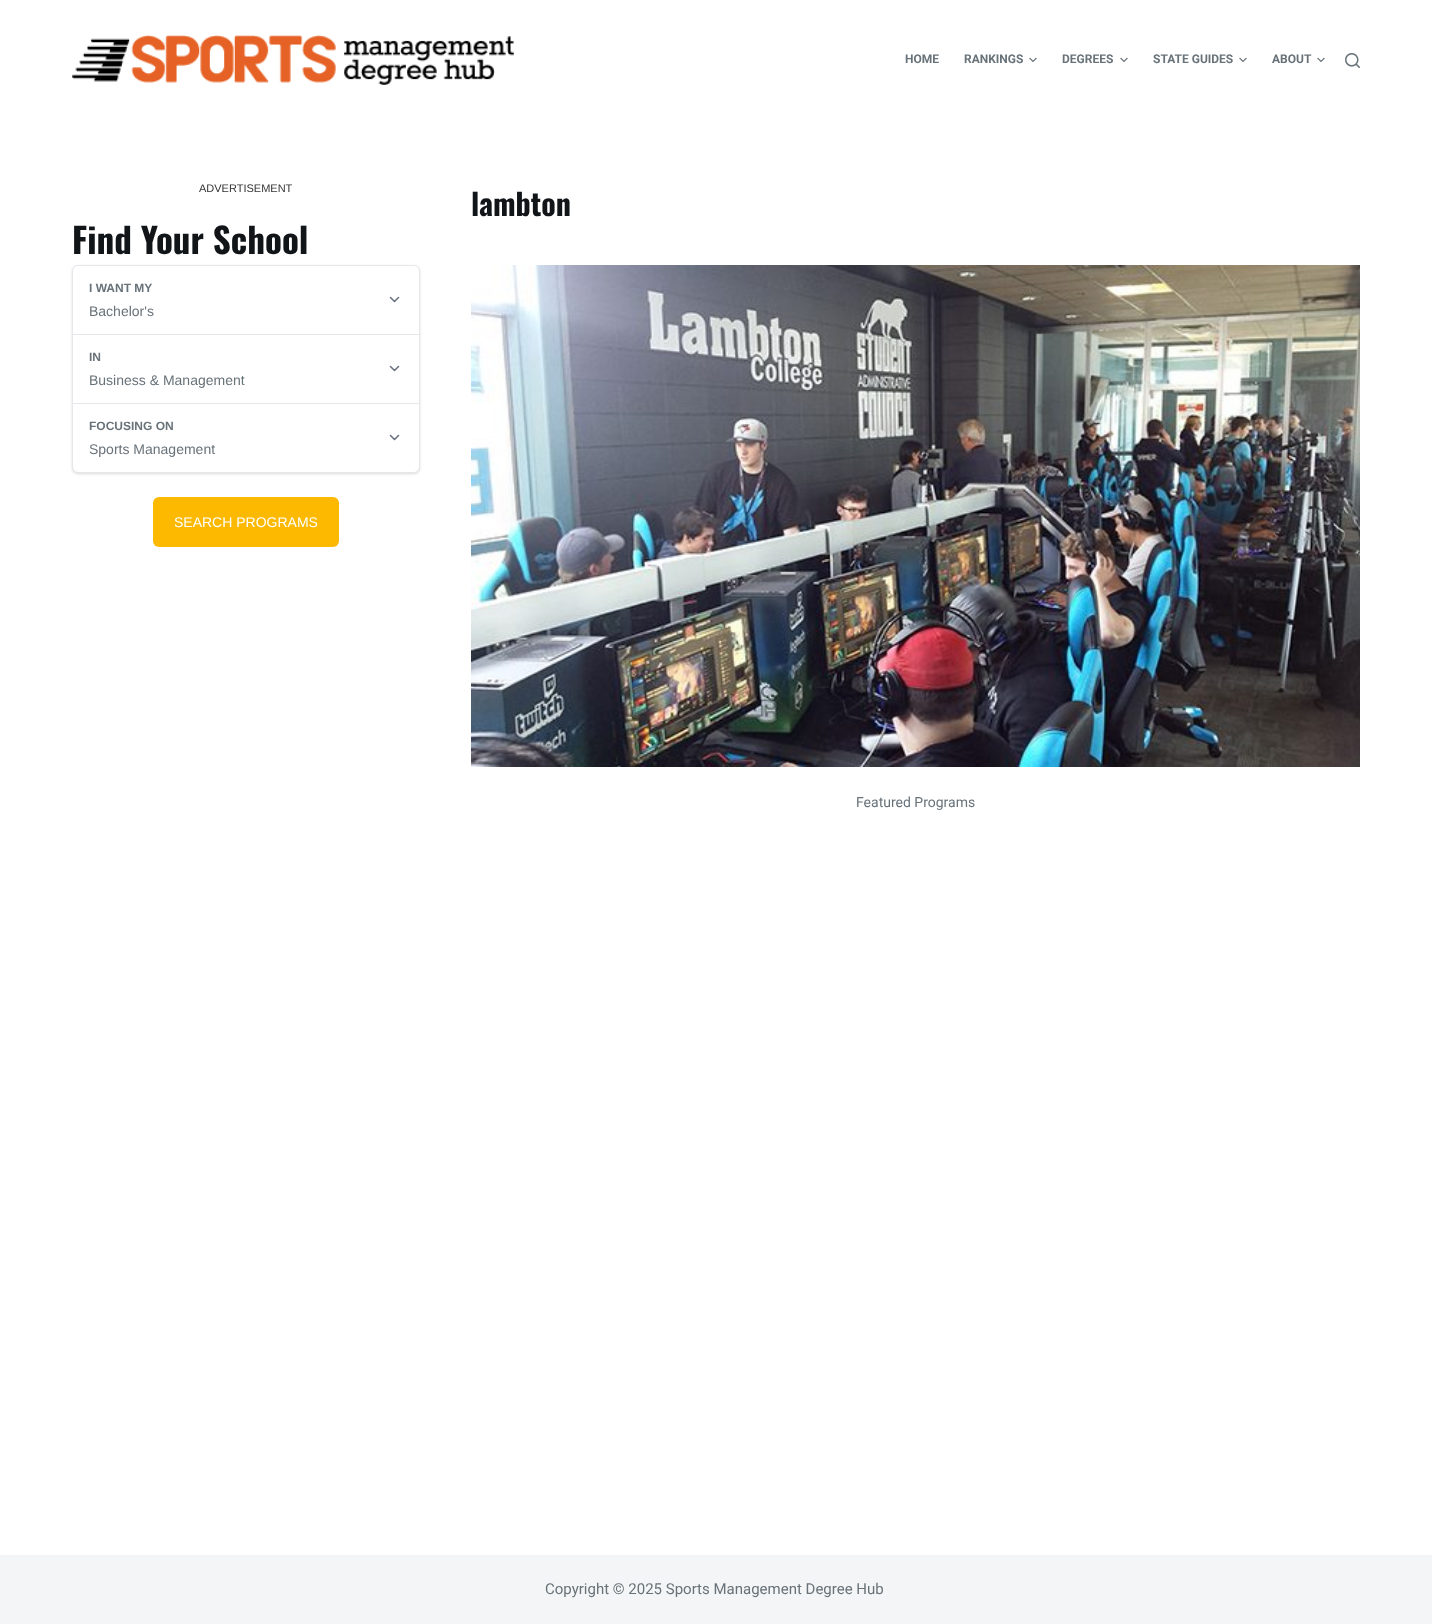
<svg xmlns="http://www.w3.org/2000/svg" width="1432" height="1624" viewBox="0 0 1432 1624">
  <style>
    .t1 { font: bold 12px Roboto; fill: #687279; }
    .t2 { font: 11px Liberation Sans; fill: #333; }
    .t3 { font: bold 35px Oswald; fill: #111518; }
    .t4 { font: bold 12px Liberation Sans; fill: #687279; }
    .t5 { font: 14px Liberation Sans; fill: #687279; }
    .t6 { font: 14px Liberation Sans; fill: #fff; }
    .t7 { font: bold 30px Oswald; fill: #111518; }
    .t8 { font: 14px Roboto; fill: #687279; }
    .t9 { font: 15px Roboto; fill: #687279; }
  </style>
  <rect width="100%" height="100%" fill="#fff"/>
  <image x="72" y="35" width="442" height="50" href="images/1.png"/>
  <text x="905" y="63" class="t1">HOME</text>
  <text x="964" y="63" class="t1">RANKINGS</text>
  <image x="1029" y="57" width="8" height="6" href="images/2.png"/>
  <text x="1062" y="63" class="t1">DEGREES</text>
  <image x="1120" y="57" width="8" height="6" href="images/2.png"/>
  <text x="1153" y="63" class="t1">STATE GUIDES</text>
  <image x="1239" y="57" width="8" height="6" href="images/2.png"/>
  <text x="1272" y="63" class="t1">ABOUT</text>
  <image x="1317" y="57" width="8" height="6" href="images/2.png"/>
  <image x="1345" y="53" width="15" height="15" href="images/3.png"/>
  <text x="199" y="192" class="t2">ADVERTISEMENT</text>
  <text x="72" y="254" class="t3">Find Your School</text>
  <rect x="73" y="267" width="346" height="206" rx="5" fill="#0000001a" filter="blur(1px)"/>
  <rect x="72" y="266" width="348" height="208" rx="6" fill="#0000001a" filter="blur(1.5px)"/>
  <rect x="72.5" y="265.5" width="347" height="207" rx="5.5" fill="#fff" stroke="#e5e7eb"/>
  <rect x="73" y="334" width="346" height="1" fill="#e5e7eb"/>
  <text x="89" y="292" class="t4">I WANT MY</text>
  <path d="M390.5 297.5L394.5 301.5L398.5 297.5" fill="none" stroke="#6b7280" stroke-width="1.6" stroke-linecap="round" stroke-linejoin="round"/>
  <text x="89" y="316" class="t5">Bachelor's</text>
  <rect x="73" y="403" width="346" height="1" fill="#e5e7eb"/>
  <text x="89" y="361" class="t4">IN</text>
  <path d="M390.5 366.5L394.5 370.5L398.5 366.5" fill="none" stroke="#6b7280" stroke-width="1.6" stroke-linecap="round" stroke-linejoin="round"/>
  <text x="89" y="385" class="t5">Business &amp; Management</text>
  <text x="89" y="430" class="t4">FOCUSING ON</text>
  <path d="M390.5 435.5L394.5 439.5L398.5 435.5" fill="none" stroke="#6b7280" stroke-width="1.6" stroke-linecap="round" stroke-linejoin="round"/>
  <text x="89" y="454" class="t5">Sports Management</text>
  <rect x="153" y="497" width="186" height="50" rx="6" fill="#fcb900"/>
  <text x="174" y="527" class="t6">SEARCH PROGRAMS</text>
  <text x="471" y="216" class="t7">lambton</text>
  <image x="471" y="265" width="889" height="502" href="images/4.png"/>
  <text x="856" y="807" class="t8">Featured Programs</text>
  <rect x="0" y="1555" width="1432" height="69" fill="#f4f5f6"/>
  <text x="545" y="1594" class="t9">Copyright © 2025 Sports Management Degree Hub</text>
</svg>
